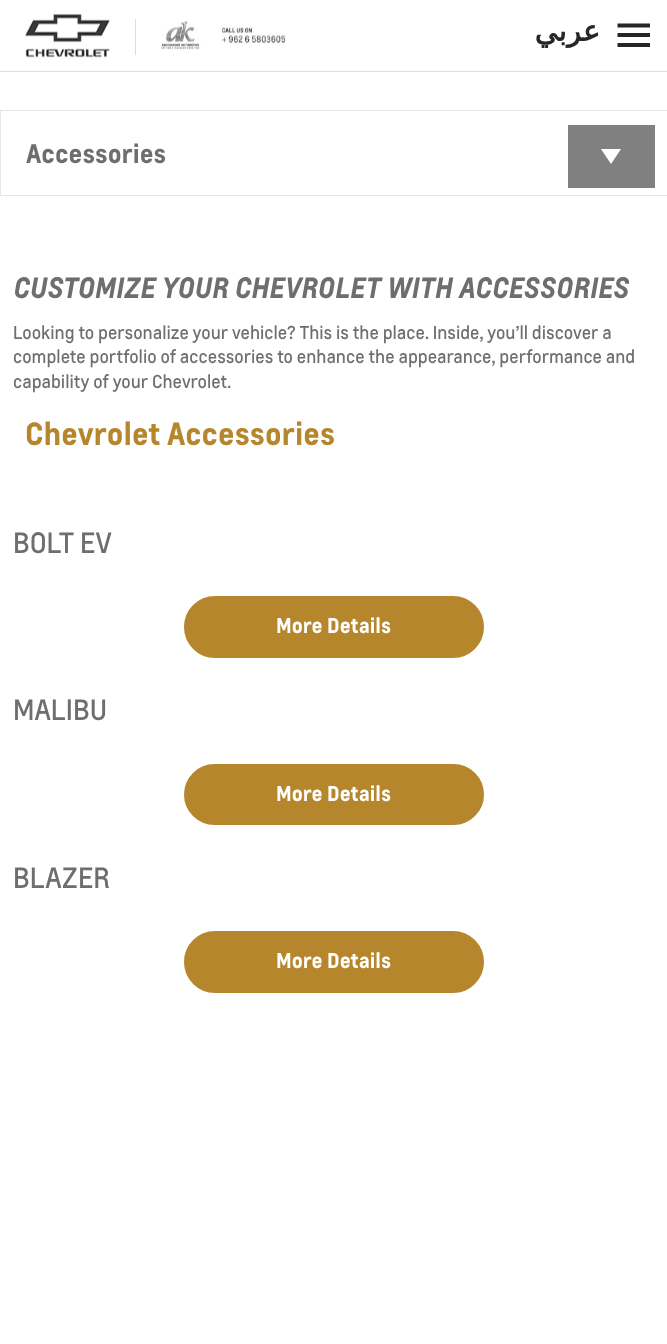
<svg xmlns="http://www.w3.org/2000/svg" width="667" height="1344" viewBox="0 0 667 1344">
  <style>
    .t1 { font: bold 29px DejaVu Sans; direction: rtl; fill: #262626; }
    .t2 { font: bold 25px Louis; fill: #6e6e6e; }
    .t3 { font: italic bold 27.5px Louis; fill: #6e6e6e; }
    .t4 { font: 17.5px Louis; fill: #6e6e6e; }
    .t5 { font: bold 30px Louis; fill: #b6862d; }
    .t6 { font: 27.5px Louis; fill: #6e6e6e; }
    .t7 { font: bold 20px Louis; fill: #fff; }
  </style>
  <rect width="100%" height="100%" fill="#fff"/>
  <rect x="0" y="71" width="667" height="1" fill="#ddd"/>
  <image x="25" y="14" width="85" height="44" href="images/1.png"/>
  <rect x="135" y="19" width="1" height="36" fill="#ddd"/>
  <image x="161" y="21" width="125" height="29" href="images/2.png"/>
  <text x="600" y="41" class="t1">عربي</text>
  <path d="M617.5 33H650V37H617.5ZM617.5 43H650V47H617.5ZM617.5 23.5H650V27.5H617.5Z" fill="#262626"/>
  <rect x="0.5" y="110.5" width="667" height="85" fill="none" stroke="#e6e6e6"/>
  <text x="26" y="163" class="t2">Accessories</text>
  <rect x="568" y="125" width="87" height="63" fill="#808080"/>
  <path d="M601 149H621L611 164Z" fill="#fff"/>
  <text x="13" y="298" class="t3">CUSTOMIZE YOUR CHEVROLET WITH ACCESSORIES</text>
  <text x="13" y="339" class="t4">Looking to personalize your vehicle? This is the place. Inside, you’ll discover a</text>
  <text x="13" y="363" class="t4">complete portfolio of accessories to enhance the appearance, performance and</text>
  <text x="13" y="388" class="t4">capability of your Chevrolet.</text>
  <text x="25" y="445" class="t5">Chevrolet Accessories</text>
  <text x="13" y="553" class="t6">BOLT EV</text>
  <rect x="185.5" y="597.5" width="297" height="59" rx="29.5" fill="#b6862d" stroke="#b6862d" stroke-width="3"/>
  <text x="276" y="633" class="t7">More Details</text>
  <text x="13" y="720" class="t6">MALIBU</text>
  <rect x="185.5" y="765.5" width="297" height="58" rx="29" fill="#b6862d" stroke="#b6862d" stroke-width="3"/>
  <text x="276" y="801" class="t7">More Details</text>
  <text x="13" y="888" class="t6">BLAZER</text>
  <rect x="185.5" y="932.5" width="297" height="59" rx="29.5" fill="#b6862d" stroke="#b6862d" stroke-width="3"/>
  <text x="276" y="968" class="t7">More Details</text>
</svg>
